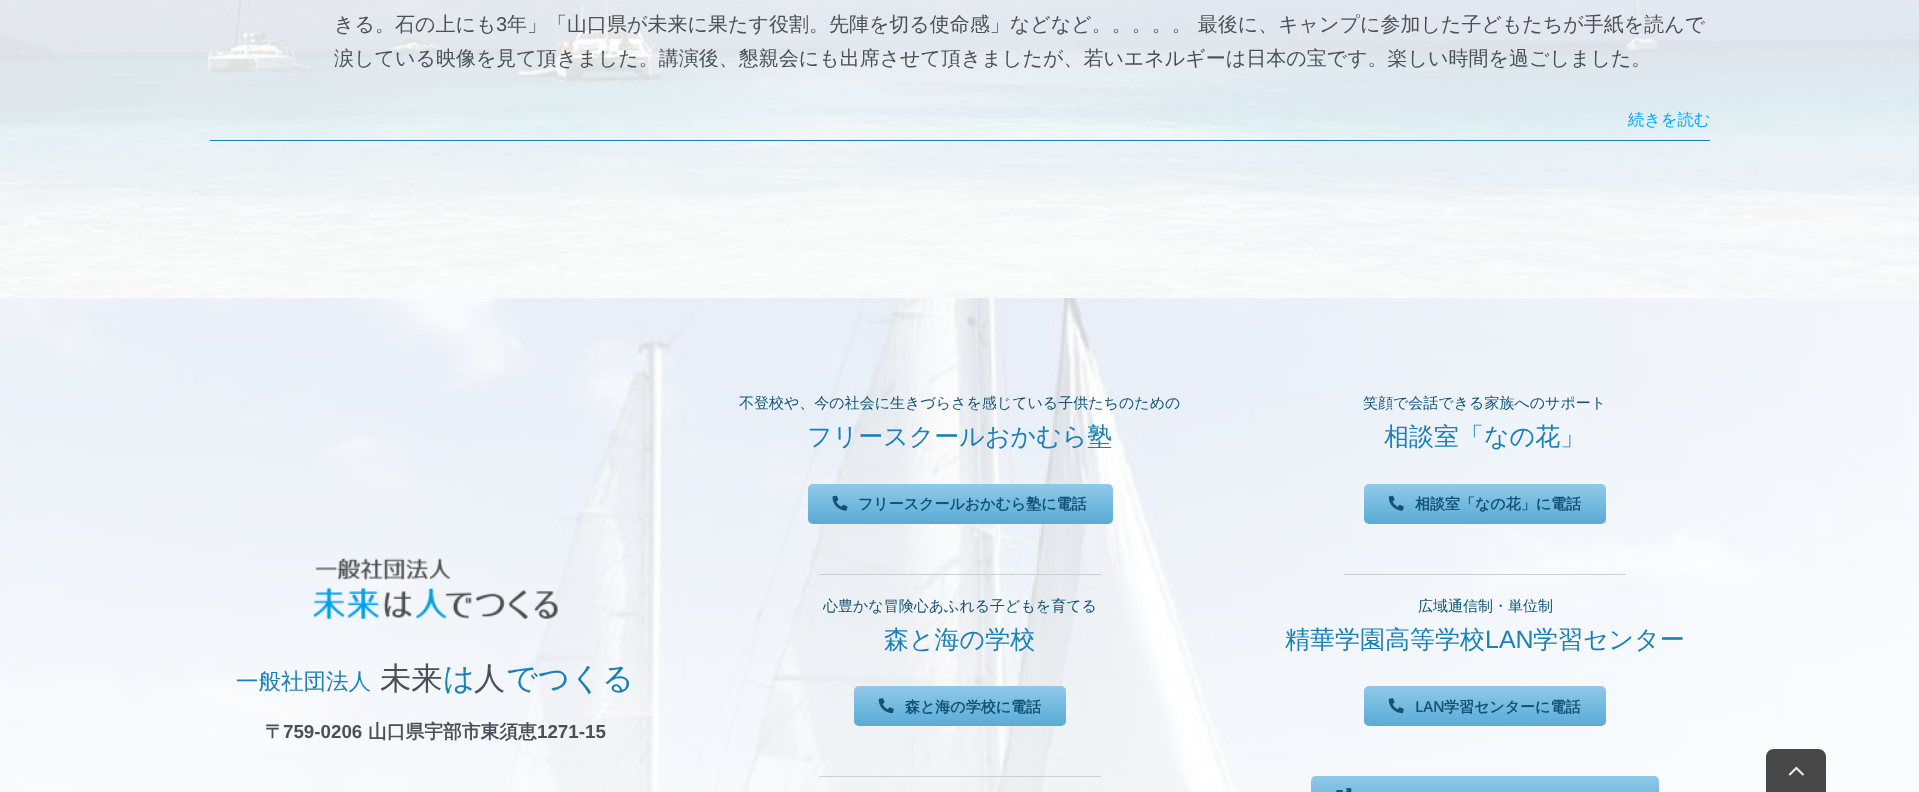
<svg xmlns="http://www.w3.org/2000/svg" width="1919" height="792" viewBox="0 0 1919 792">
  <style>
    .t1 { font: 500 20px WenQuanYi Zen Hei; fill: #495156; }
    .t2 { font: 20px Liberation Sans; fill: #495156; }
    .t3 { font: 500 16.25px WenQuanYi Zen Hei; fill: #03a9f4; }
    .t4 { font: 500 22.5px WenQuanYi Zen Hei; fill: #1a80b6; }
    .t5 { font: 500 31.25px WenQuanYi Zen Hei; fill: #495156; }
    .t6 { font: 500 31.25px WenQuanYi Zen Hei; fill: #1a80b6; }
    .t7 { font: bold 18.75px WenQuanYi Zen Hei; fill: #495156; }
    .t8 { font: bold 18.75px Liberation Sans; fill: #495156; }
    .t9 { font: 500 15px WenQuanYi Zen Hei; fill: #105378; }
    .t10 { font: 500 25px WenQuanYi Zen Hei; fill: #1a80b6; }
    .t11 { font: bold 15px WenQuanYi Zen Hei; fill: #105378; }
    .t12 { font: 25px Liberation Sans; fill: #1a80b6; }
    .t13 { font: 600 15px Open Sans; fill: #105378; }
  </style>
  <defs>
    <linearGradient id="g1" gradientUnits="userSpaceOnUse" x1="960" y1="484" x2="960" y2="524"><stop offset="0" stop-color="#90c9e8"/><stop offset="1" stop-color="#5aabd6"/></linearGradient>
    <linearGradient id="g2" gradientUnits="userSpaceOnUse" x1="960" y1="686" x2="960" y2="726"><stop offset="0" stop-color="#90c9e8"/><stop offset="1" stop-color="#5aabd6"/></linearGradient>
    <linearGradient id="g3" gradientUnits="userSpaceOnUse" x1="1485" y1="484" x2="1485" y2="524"><stop offset="0" stop-color="#90c9e8"/><stop offset="1" stop-color="#5aabd6"/></linearGradient>
    <linearGradient id="g4" gradientUnits="userSpaceOnUse" x1="1485" y1="686" x2="1485" y2="726"><stop offset="0" stop-color="#90c9e8"/><stop offset="1" stop-color="#5aabd6"/></linearGradient>
    <linearGradient id="g5" gradientUnits="userSpaceOnUse" x1="1485" y1="776" x2="1485" y2="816"><stop offset="0" stop-color="#90c9e8"/><stop offset="1" stop-color="#5aabd6"/></linearGradient>
  </defs>
  <rect width="100%" height="100%" fill="#fff"/>
  <image x="0" y="0" width="1919" height="298" href="images/1.png"/>
  <text x="334" y="31" class="t1">きる。石の上にも</text>
  <text x="496" y="31" class="t2">3</text>
  <text x="507" y="31" class="t1">年」「山口県が未来に果たす役割。先陣を切る使命感」などなど。。。。。 最後に、キャンプに参加した子どもたちが手紙を読んで</text>
  <text x="334" y="65" class="t1">涙している映像を見て頂きました。講演後、懇親会にも出席させて頂きましたが、若いエネルギーは日本の宝です。楽しい時間を過ごしました。</text>
  <rect x="210" y="140" width="1500" height="1" fill="#1a80b6"/>
  <text x="1628" y="125" class="t3">続きを読む</text>
  <image x="0" y="298" width="1919" height="494" href="images/2.png"/>
  <image x="313" y="558" width="245" height="61" href="images/3.png"/>
  <text x="236" y="689" class="t4">一般社団法人</text>
  <text x="380" y="689" class="t5">未来</text>
  <text x="443" y="689" class="t6">は</text>
  <text x="474" y="689" class="t5">人</text>
  <text x="506" y="689" class="t6">でつくる</text>
  <text x="265" y="738" class="t7">〒</text>
  <text x="283" y="738" class="t8">759-0206</text>
  <text x="368" y="738" class="t7">山口県宇部市東須恵</text>
  <text x="537" y="738" class="t8">1271-15</text>
  <text x="739" y="408" class="t9">不登校や、今の社会に生きづらさを感じている子供たちのための</text>
  <text x="807" y="445" class="t10">フリースクールおかむら塾</text>
  <rect x="808" y="484" width="305" height="40" rx="5" fill="url(#g1)"/>
  <image x="832" y="495" width="16" height="16" href="images/4.png"/>
  <text x="858" y="509" class="t11">フリースクールおかむら塾に電話</text>
  <rect x="819" y="574" width="282" height="1" fill="#cecece"/>
  <text x="823" y="611" class="t9">心豊かな冒険心あふれる子どもを育てる</text>
  <text x="884" y="648" class="t10">森と海の学校</text>
  <rect x="854" y="686" width="212" height="40" rx="5" fill="url(#g2)"/>
  <image x="878" y="698" width="16" height="16" href="images/5.png"/>
  <text x="905" y="712" class="t11">森と海の学校に電話</text>
  <rect x="819" y="776" width="282" height="1" fill="#cecece"/>
  <text x="1363" y="408" class="t9">笑顔で会話できる家族へのサポート</text>
  <text x="1384" y="445" class="t10">相談室「なの花」</text>
  <rect x="1364" y="484" width="242" height="40" rx="5" fill="url(#g3)"/>
  <image x="1388" y="495" width="16" height="16" href="images/6.png"/>
  <text x="1415" y="509" class="t11">相談室「なの花」に電話</text>
  <rect x="1344" y="574" width="282" height="1" fill="#cecece"/>
  <text x="1418" y="611" class="t9">広域通信制・単位制</text>
  <text x="1285" y="648" class="t10">精華学園高等学校</text>
  <text x="1485" y="648" class="t12">LAN</text>
  <text x="1533" y="648" class="t10">学習センター</text>
  <rect x="1364" y="686" width="242" height="40" rx="5" fill="url(#g4)"/>
  <image x="1388" y="698" width="16" height="16" href="images/5.png"/>
  <text x="1415" y="712" class="t13">LAN</text>
  <text x="1444" y="712" class="t11">学習センターに電話</text>
  <rect x="1311" y="776" width="348" height="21" rx="5" fill="url(#g5)"/>
  <image x="1336" y="788" width="16" height="4" href="images/7.png"/>
  <path d="M1774 749H1818C1822.5 749 1826 752.5 1826 757V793H1766V757C1766 752.5 1769.5 749 1774 749Z" fill="#474747"/>
  <image x="1788" y="766" width="16" height="10" href="images/8.png"/>
</svg>
